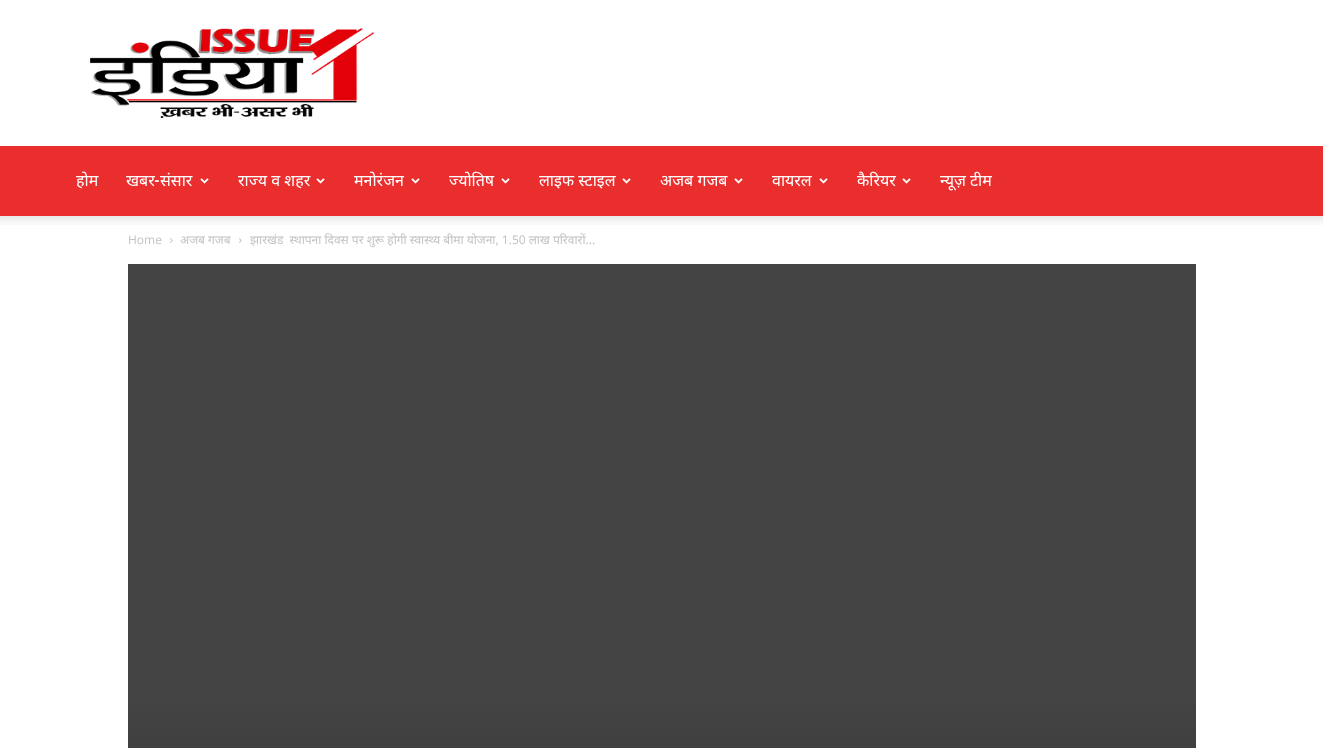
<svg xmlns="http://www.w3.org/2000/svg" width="1323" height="748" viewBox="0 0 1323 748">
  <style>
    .t1 { font: 16px Noto Sans; fill: #fff; }
    .t2 { font: bold 16px Roboto Condensed; fill: #fff; }
    .t3 { font: 12px Open Sans; fill: #c3c3c3; }
    .t4 { font: 12px Noto Sans; fill: #c3c3c3; }
  </style>
  <defs>
    <linearGradient id="g1" gradientUnits="userSpaceOnUse" x1="662" y1="699" x2="662" y2="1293"><stop offset="0" stop-color="#444"/><stop offset="1" stop-color="#0e0e0e"/></linearGradient>
  </defs>
  <rect width="100%" height="100%" fill="#fff"/>
  <image x="90" y="28" width="284" height="90" href="images/1.png"/>
  <rect x="0" y="146" width="1323" height="70" fill="#ea2e2e"/>
  <text x="76" y="186" class="t1">होम</text>
  <text x="126" y="186" class="t1">खबर</text>
  <text x="154" y="186" class="t2">-</text>
  <text x="160" y="186" class="t1">संसार</text>
  <image x="200" y="178" width="9" height="6" href="images/2.png"/>
  <text x="238" y="186" class="t1">राज्य व शहर</text>
  <image x="316" y="178" width="9" height="6" href="images/2.png"/>
  <text x="354" y="186" class="t1">मनोरंजन</text>
  <image x="411" y="178" width="9" height="6" href="images/2.png"/>
  <text x="449" y="186" class="t1">ज्योतिष</text>
  <image x="501" y="178" width="9" height="6" href="images/2.png"/>
  <text x="539" y="186" class="t1">लाइफ स्टाइल</text>
  <image x="622" y="178" width="9" height="6" href="images/2.png"/>
  <text x="660" y="186" class="t1">अजब गजब</text>
  <image x="734" y="178" width="9" height="6" href="images/2.png"/>
  <text x="772" y="186" class="t1">वायरल</text>
  <image x="819" y="178" width="9" height="6" href="images/2.png"/>
  <text x="857" y="186" class="t1">कैरियर</text>
  <image x="902" y="178" width="9" height="6" href="images/2.png"/>
  <text x="940" y="186" class="t1">न्यूज़ टीम</text>
  <image x="0" y="216" width="1323" height="9" href="images/3.png"/>
  <text x="128" y="244" class="t3">Home</text>
  <image x="170" y="238" width="3" height="5" href="images/4.png"/>
  <text x="180" y="244" class="t4">अजब गजब</text>
  <image x="239" y="238" width="3" height="5" href="images/4.png"/>
  <text x="250" y="244" class="t4" xml:space="preserve">झारखंड  स्थापना दिवस पर शुरू होगी स्वास्थ्य बीमा योजना, 1.50 लाख परिवारों...</text>
  <rect x="128" y="264" width="1068" height="435" fill="#444"/>
  <rect x="128" y="699" width="1068" height="49" fill="url(#g1)"/>
</svg>
